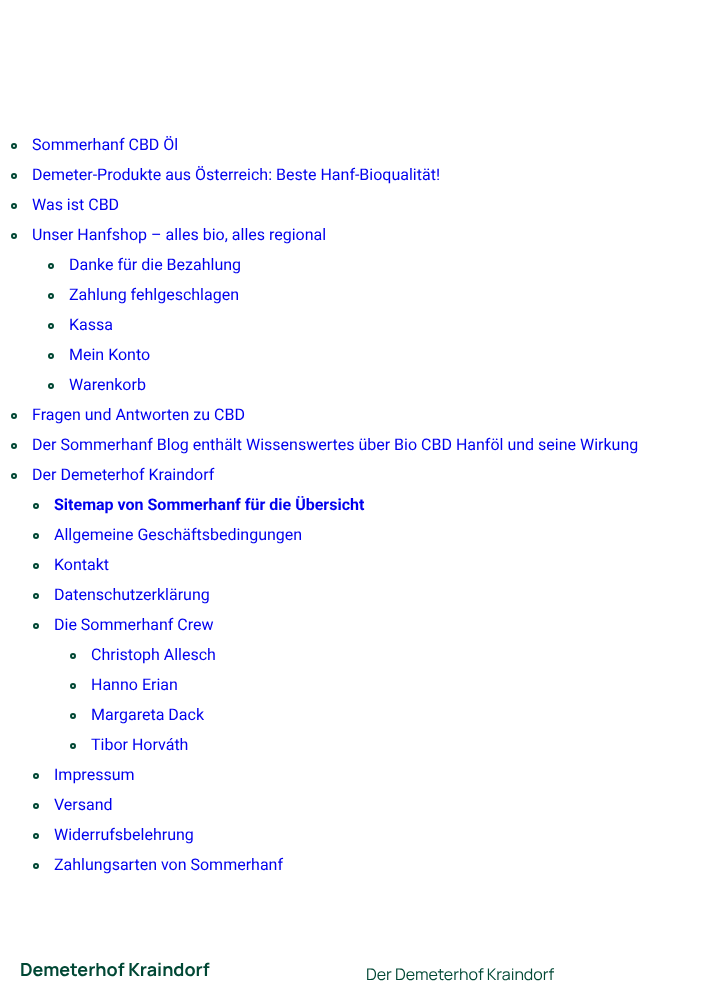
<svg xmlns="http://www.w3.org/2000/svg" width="701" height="991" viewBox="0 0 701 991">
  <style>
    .t1 { font: 16px Roboto; fill: #00e; }
    .t2 { font: bold 16px Roboto; fill: #00e; }
    .t3 { font: bold 18px Manrope; fill: #004734; }
    .t4 { font: 16px Manrope; fill: #004734; }
  </style>
  <rect width="100%" height="100%" fill="#fff"/>
  <circle cx="14" cy="146" r="2" fill="none" stroke="#004733" stroke-width="2"/>
  <text x="32" y="150" class="t1">Sommerhanf CBD Öl</text>
  <circle cx="14" cy="176" r="2" fill="none" stroke="#004733" stroke-width="2"/>
  <text x="32" y="180" class="t1">Demeter-Produkte aus Österreich: Beste Hanf-Bioqualität!</text>
  <circle cx="14" cy="206" r="2" fill="none" stroke="#004733" stroke-width="2"/>
  <text x="32" y="210" class="t1">Was ist CBD</text>
  <circle cx="14" cy="236" r="2" fill="none" stroke="#004733" stroke-width="2"/>
  <text x="32" y="240" class="t1">Unser Hanfshop – alles bio, alles regional</text>
  <circle cx="51" cy="266" r="2" fill="none" stroke="#004733" stroke-width="2"/>
  <text x="69" y="270" class="t1">Danke für die Bezahlung</text>
  <circle cx="51" cy="296" r="2" fill="none" stroke="#004733" stroke-width="2"/>
  <text x="69" y="300" class="t1">Zahlung fehlgeschlagen</text>
  <circle cx="51" cy="326" r="2" fill="none" stroke="#004733" stroke-width="2"/>
  <text x="69" y="330" class="t1">Kassa</text>
  <circle cx="51" cy="356" r="2" fill="none" stroke="#004733" stroke-width="2"/>
  <text x="69" y="360" class="t1">Mein Konto</text>
  <circle cx="51" cy="386" r="2" fill="none" stroke="#004733" stroke-width="2"/>
  <text x="69" y="390" class="t1">Warenkorb</text>
  <circle cx="14" cy="416" r="2" fill="none" stroke="#004733" stroke-width="2"/>
  <text x="32" y="420" class="t1">Fragen und Antworten zu CBD</text>
  <circle cx="14" cy="446" r="2" fill="none" stroke="#004733" stroke-width="2"/>
  <text x="32" y="450" class="t1">Der Sommerhanf Blog enthält Wissenswertes über Bio CBD Hanföl und seine Wirkung</text>
  <circle cx="14" cy="476" r="2" fill="none" stroke="#004733" stroke-width="2"/>
  <text x="32" y="480" class="t1">Der Demeterhof Kraindorf</text>
  <circle cx="36" cy="506" r="2" fill="none" stroke="#004733" stroke-width="2"/>
  <text x="54" y="510" class="t2">Sitemap von Sommerhanf für die Übersicht</text>
  <circle cx="36" cy="536" r="2" fill="none" stroke="#004733" stroke-width="2"/>
  <text x="54" y="540" class="t1">Allgemeine Geschäftsbedingungen</text>
  <circle cx="36" cy="566" r="2" fill="none" stroke="#004733" stroke-width="2"/>
  <text x="54" y="570" class="t1">Kontakt</text>
  <circle cx="36" cy="596" r="2" fill="none" stroke="#004733" stroke-width="2"/>
  <text x="54" y="600" class="t1">Datenschutzerklärung</text>
  <circle cx="36" cy="626" r="2" fill="none" stroke="#004733" stroke-width="2"/>
  <text x="54" y="630" class="t1">Die Sommerhanf Crew</text>
  <circle cx="73" cy="656" r="2" fill="none" stroke="#004733" stroke-width="2"/>
  <text x="91" y="660" class="t1">Christoph Allesch</text>
  <circle cx="73" cy="686" r="2" fill="none" stroke="#004733" stroke-width="2"/>
  <text x="91" y="690" class="t1">Hanno Erian</text>
  <circle cx="73" cy="716" r="2" fill="none" stroke="#004733" stroke-width="2"/>
  <text x="91" y="720" class="t1">Margareta Dack</text>
  <circle cx="73" cy="746" r="2" fill="none" stroke="#004733" stroke-width="2"/>
  <text x="91" y="750" class="t1">Tibor Horváth</text>
  <circle cx="36" cy="776" r="2" fill="none" stroke="#004733" stroke-width="2"/>
  <text x="54" y="780" class="t1">Impressum</text>
  <circle cx="36" cy="806" r="2" fill="none" stroke="#004733" stroke-width="2"/>
  <text x="54" y="810" class="t1">Versand</text>
  <circle cx="36" cy="836" r="2" fill="none" stroke="#004733" stroke-width="2"/>
  <text x="54" y="840" class="t1">Widerrufsbelehrung</text>
  <circle cx="36" cy="866" r="2" fill="none" stroke="#004733" stroke-width="2"/>
  <text x="54" y="870" class="t1">Zahlungsarten von Sommerhanf</text>
  <text x="20" y="976" class="t3">Demeterhof Kraindorf</text>
  <text x="366" y="980" class="t4">Der Demeterhof Kraindorf</text>
</svg>
